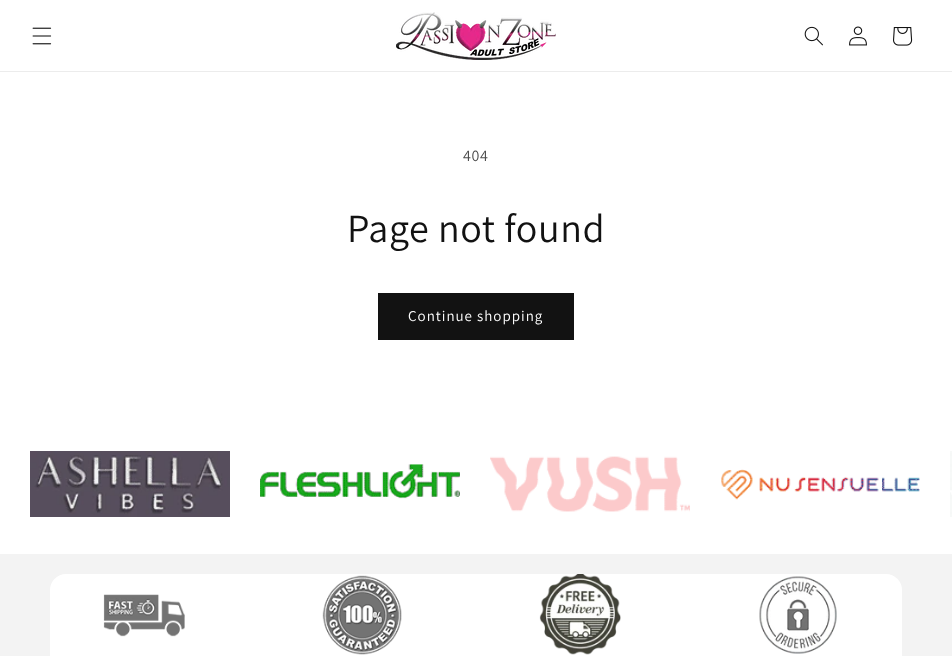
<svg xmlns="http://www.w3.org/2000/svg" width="952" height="656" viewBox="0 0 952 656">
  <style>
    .t1 { font: 16px Assistant; letter-spacing: 0.6px; fill: #4d4d4d; }
    .t2 { font: 40px Assistant; letter-spacing: 0.6px; fill: #121212; }
    .t3 { font: 15px Assistant; letter-spacing: 1px; fill: #fff; }
  </style>
  <rect width="100%" height="100%" fill="#fff"/>
  <rect x="0" y="71" width="952" height="1" fill="#ececec"/>
  <image x="32" y="27" width="20" height="18" href="images/1.png"/>
  <image x="396" y="12" width="160" height="48" href="images/2.png"/>
  <image x="804" y="26" width="19" height="20" href="images/3.png"/>
  <image x="849" y="26" width="18" height="20" href="images/4.png"/>
  <image x="893" y="27" width="20" height="19" href="images/5.png"/>
  <text x="463" y="161" class="t1">404</text>
  <text x="347" y="242" class="t2">Page not found</text>
  <rect x="378" y="293" width="196" height="47" fill="#121212"/>
  <text x="408" y="321" class="t3">Continue shopping</text>
  <image x="30" y="451" width="200" height="66" href="images/6.png"/>
  <image x="260" y="464" width="200" height="35" href="images/7.png"/>
  <image x="490" y="456" width="200" height="56" href="images/8.png"/>
  <image x="721" y="469" width="199" height="31" href="images/9.png"/>
  <image x="950" y="451" width="2" height="66" href="images/10.png"/>
  <rect x="0" y="554" width="952" height="102" fill="#f3f3f3"/>
  <rect x="50" y="574" width="852" height="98" rx="16" fill="#fff"/>
  <image x="103" y="594" width="82" height="43" href="images/11.png"/>
  <image x="322" y="575" width="80" height="80" href="images/12.png"/>
  <image x="539" y="574" width="82" height="81" href="images/13.png"/>
  <image x="759" y="576" width="78" height="78" href="images/14.png"/>
</svg>
